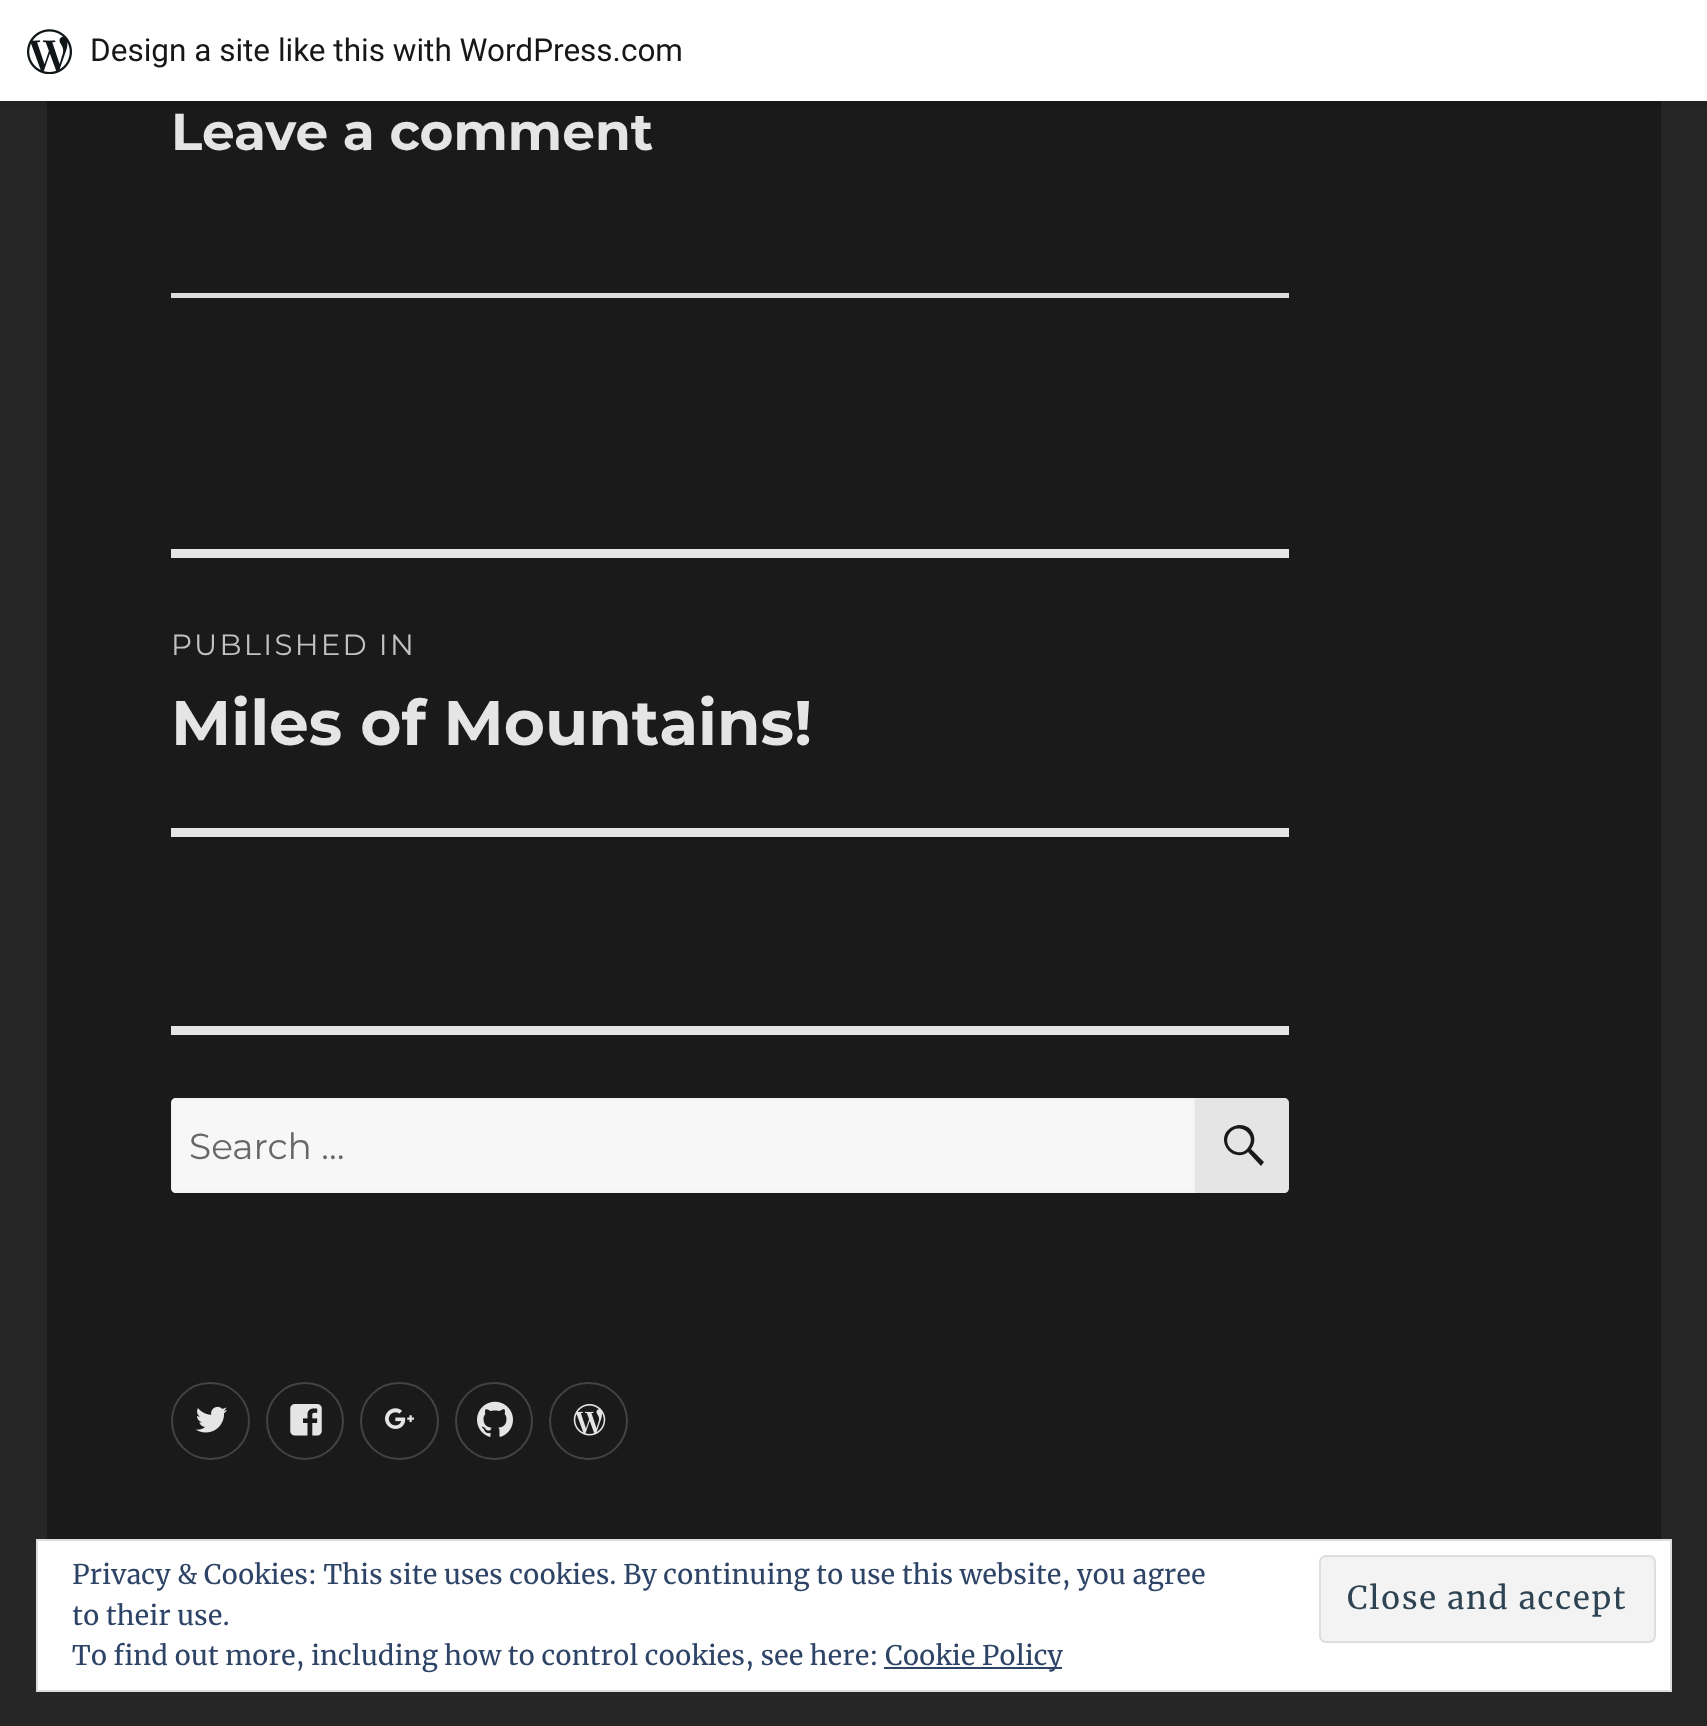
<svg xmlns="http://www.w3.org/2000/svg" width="1707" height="1726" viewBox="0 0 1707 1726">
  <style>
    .t1 { font: 31.5px Roboto; fill: #171717; }
    .t2 { font: 100 51.75px Montserrat; fill: #e5e5e5; }
    .t3 { font: 100 29.25px 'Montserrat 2'; letter-spacing: 2.25px; fill: #c1c1c1; }
    .t4 { font: 100 63px Montserrat; fill: #e5e5e5; }
    .t5 { font: 100 36px 'Montserrat 2'; fill: #686868; }
    .t6 { font: 27px Merriweather; fill: #2e4467; }
    .t7 { font: 31.5px Merriweather; letter-spacing: 1.5px; fill: #2e4453; }
  </style>
  <rect width="100%" height="100%" fill="#262626"/>
  <rect x="47" y="101" width="1614" height="1438" fill="#1a1a1a"/>
  <path d="M2 101V108H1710V7H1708V101Z" fill="#00000014"/>
  <rect x="0" y="0" width="1707" height="101" fill="#fff"/>
  <image x="27" y="29" width="45" height="45" href="images/1.png"/>
  <text x="90" y="61" class="t1">Design a site like this with WordPress.com</text>
  <text x="171" y="150" class="t2">Leave a comment</text>
  <rect x="171" y="293" width="1118" height="5" fill="#dcdcde"/>
  <rect x="171" y="549" width="1118" height="9" fill="#e5e5e5"/>
  <rect x="171" y="828" width="1118" height="9" fill="#e5e5e5"/>
  <text x="171" y="655" class="t3">PUBLISHED IN</text>
  <text x="171" y="745" class="t4">Miles of Mountains!</text>
  <rect x="171" y="1026" width="1118" height="9" fill="#e5e5e5"/>
  <path d="M176 1098H1195V1193H176C173 1193 171 1191 171 1188V1103C171 1100 173 1098 176 1098Z" fill="#f7f7f7"/>
  <path d="M176 1099H1194V1192H176C174 1192 172 1190 172 1188V1103C172 1101 174 1099 176 1099Z" fill="none" stroke="#e5e5e533" stroke-width="2"/>
  <text x="189" y="1159" class="t5">Search …</text>
  <path d="M1195 1098H1284C1287 1098 1289 1100 1289 1103V1188C1289 1191 1287 1193 1284 1193H1195Z" fill="#e5e5e5"/>
  <path d="M1264 1162L1261 1166L1248 1152C1241 1158 1230 1155 1226 1147C1216 1127 1248 1115 1254 1136C1255 1141 1254 1145 1251 1149ZM1229 1134C1221 1148 1242 1160 1249 1146C1257 1133 1237 1121 1229 1134Z" fill="#1a1a1a"/>
  <rect x="172" y="1383" width="77" height="76" rx="38" fill="none" stroke="#434343" stroke-width="2"/>
  <image x="196" y="1406" width="31" height="27" href="images/2.png"/>
  <circle cx="305" cy="1421" r="38" fill="none" stroke="#434343" stroke-width="2"/>
  <image x="290" y="1404" width="32" height="32" href="images/3.png"/>
  <rect x="361" y="1383" width="77" height="76" rx="38" fill="none" stroke="#434343" stroke-width="2"/>
  <image x="385" y="1408" width="29" height="21" href="images/4.png"/>
  <circle cx="494" cy="1421" r="38" fill="none" stroke="#434343" stroke-width="2"/>
  <image x="477" y="1401" width="36" height="36" href="images/5.png"/>
  <rect x="550" y="1383" width="77" height="76" rx="38" fill="none" stroke="#434343" stroke-width="2"/>
  <image x="573" y="1404" width="33" height="32" href="images/6.png"/>
  <rect x="37" y="1540" width="1634" height="151" fill="#fff" stroke="#dedede" stroke-width="2"/>
  <text x="72" y="1584" class="t6">Privacy &amp; Cookies: This site uses cookies. By continuing to use this website, you agree</text>
  <text x="72" y="1625" class="t6">to their use.</text>
  <rect x="1320" y="1556" width="335" height="86" rx="6" fill="#f3f3f3" stroke="#dedede" stroke-width="2"/>
  <text x="1347" y="1609" class="t7">Close and accept</text>
  <text x="72" y="1665" class="t6">To find out more, including how to control cookies, see here:</text>
  <rect x="884" y="1667" width="178" height="2" fill="#2e4467"/>
  <text x="885" y="1665" class="t6">Cookie Policy</text>
</svg>
